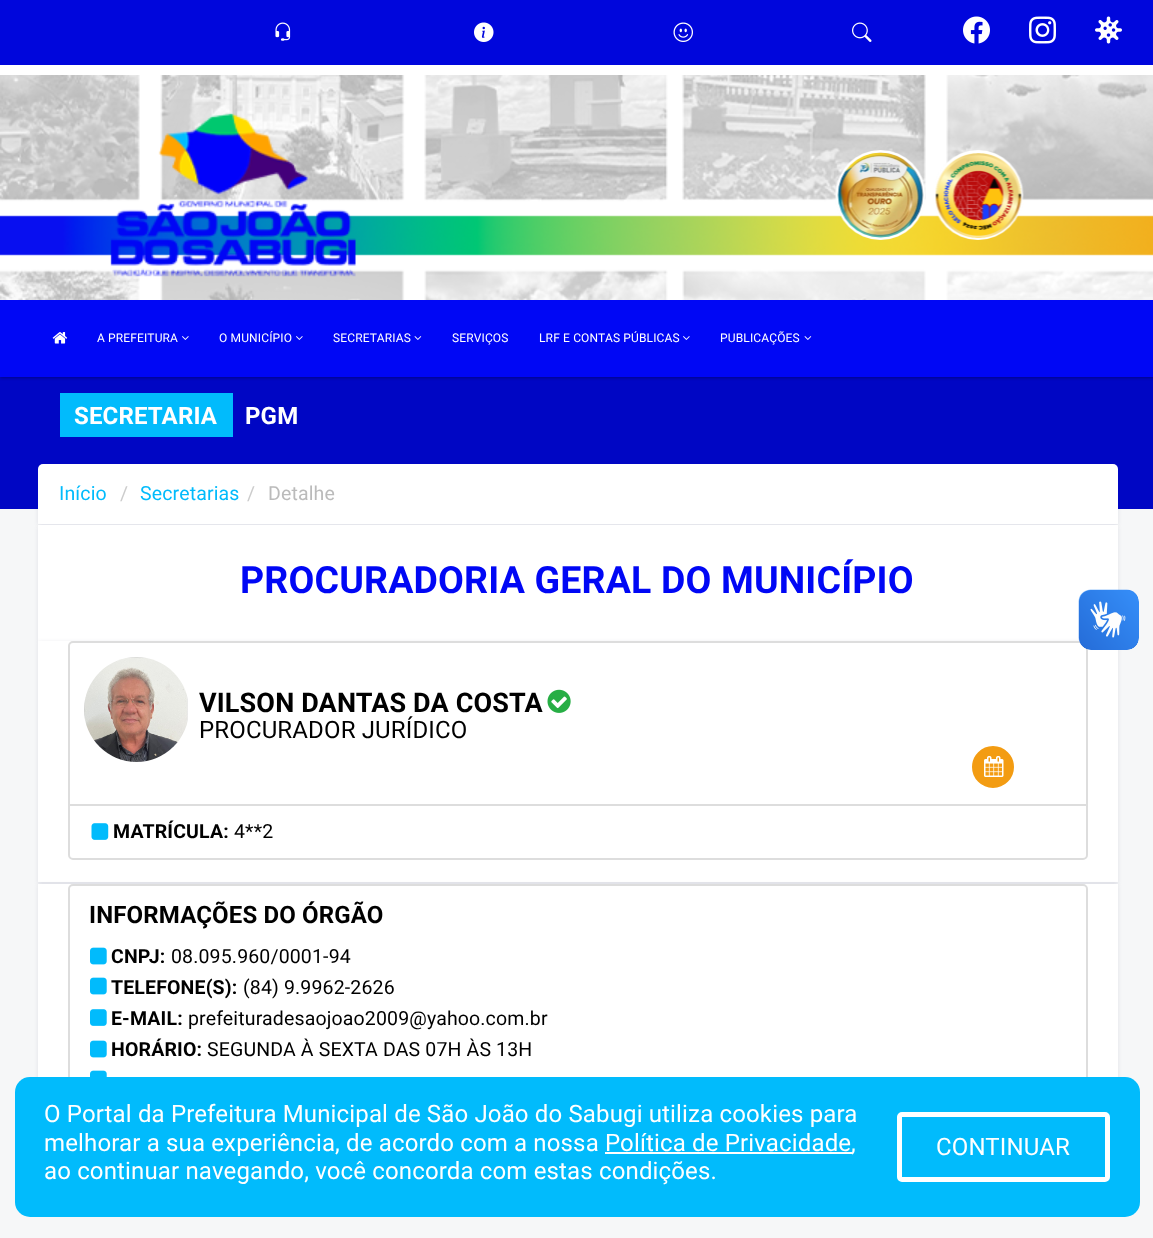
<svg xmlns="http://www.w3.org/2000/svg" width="1153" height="1238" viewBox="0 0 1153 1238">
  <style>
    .t1 { font: 12px Roboto; letter-spacing: 0.15px; fill: #fff; }
    .t2 { font: bold 24px Roboto; letter-spacing: 0.15px; fill: #fff; }
    .t3 { font: 19.5px Roboto; letter-spacing: 0.15px; fill: #01bbfc; }
    .t4 { font: 19.5px Roboto; letter-spacing: 0.15px; fill: #ccc; }
    .t5 { font: 19.5px Roboto; letter-spacing: 0.15px; fill: #bbb; }
    .t6 { font: bold 37.5px Roboto; letter-spacing: 0.15px; fill: #0007f5; }
    .t7 { font: bold 27px Roboto; letter-spacing: 0.15px; fill: #000; }
    .t8 { font: 24px Roboto; letter-spacing: 0.15px; fill: #000; }
    .t9 { font: bold 19.5px Roboto; letter-spacing: 0.15px; fill: #000; }
    .t10 { font: 19.5px Roboto; letter-spacing: 0.15px; fill: #000; }
    .t11 { font: bold 24px Roboto; letter-spacing: 0.15px; fill: #000; }
    .t12 { font: 24px Roboto; letter-spacing: 0.15px; fill: #fff; }
  </style>
  <rect width="100%" height="100%" fill="#f6f7f8"/>
  <rect x="38" y="465" width="1080" height="60" fill="#03004717" filter="blur(2px)"/>
  <rect x="0" y="377" width="1153" height="132" fill="#0006c4"/>
  <rect x="0" y="2" width="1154" height="376" fill="#0000004d" filter="blur(1.5px)"/>
  <image x="0" y="75" width="1153" height="225" href="images/1.png"/>
  <rect x="0" y="0" width="1153" height="65" fill="#0006dc"/>
  <image x="275" y="22" width="16" height="19" href="images/2.png"/>
  <image x="474" y="22" width="20" height="20" href="images/3.png"/>
  <image x="673" y="22" width="20" height="20" href="images/4.png"/>
  <image x="852" y="22" width="20" height="20" href="images/5.png"/>
  <image x="963" y="16" width="27" height="28" href="images/6.png"/>
  <image x="1029" y="16" width="27" height="28" href="images/7.png"/>
  <image x="1095" y="16" width="27" height="28" href="images/8.png"/>
  <rect x="0" y="65" width="1153" height="10" fill="#fff"/>
  <image x="110" y="113" width="246" height="164" href="images/9.png"/>
  <image x="835" y="150" width="90" height="90" href="images/10.png"/>
  <image x="935" y="150" width="89" height="90" href="images/11.png"/>
  <rect x="0" y="300" width="1153" height="77" fill="#0007f5"/>
  <image x="52" y="332" width="16" height="12" href="images/12.png"/>
  <text x="97" y="342" class="t1">A PREFEITURA</text>
  <image x="182" y="336" width="7" height="4" href="images/13.png"/>
  <text x="219" y="342" class="t1">O MUNICÍPIO</text>
  <image x="296" y="336" width="7" height="4" href="images/13.png"/>
  <text x="333" y="342" class="t1">SECRETARIAS</text>
  <image x="414" y="336" width="8" height="4" href="images/14.png"/>
  <text x="452" y="342" class="t1">SERVIÇOS</text>
  <text x="539" y="342" class="t1">LRF E CONTAS PÚBLICAS</text>
  <image x="683" y="336" width="7" height="4" href="images/13.png"/>
  <text x="720" y="342" class="t1">PUBLICAÇÕES</text>
  <image x="804" y="336" width="8" height="4" href="images/14.png"/>
  <rect x="60" y="393" width="173" height="44" fill="#01bbfc"/>
  <text x="74" y="424" class="t2">SECRETARIA</text>
  <text x="245" y="424" class="t2">PGM</text>
  <rect x="38" y="519" width="1080" height="5" fill="#fff"/>
  <rect x="38" y="527" width="1080" height="115" fill="#03004717" filter="blur(2px)"/>
  <rect x="38" y="464" width="1080" height="60" rx="5" fill="#fff"/>
  <text x="59" y="500" class="t3">Início</text>
  <text x="120" y="500" class="t4">/</text>
  <text x="140" y="500" class="t3">Secretarias</text>
  <text x="247" y="500" class="t4">/</text>
  <text x="268" y="500" class="t5">Detalhe</text>
  <rect x="38" y="525" width="1080" height="116" fill="#fff"/>
  <text x="240" y="593" class="t6">PROCURADORIA GERAL DO MUNICÍPIO</text>
  <rect x="38" y="642" width="1080" height="242" fill="#03004717" filter="blur(2px)"/>
  <rect x="38" y="641" width="1080" height="241" fill="#fff"/>
  <rect x="69" y="642" width="1018" height="217" rx="4" fill="none" stroke="#ddd" stroke-width="2"/>
  <rect x="69" y="804" width="1017" height="2" fill="#ddd"/>
  <image x="84" y="657" width="104" height="105" href="images/15.png"/>
  <text x="199" y="712" class="t7">VILSON DANTAS DA COSTA</text>
  <image x="547" y="689" width="24" height="24" href="images/16.png"/>
  <text x="199" y="738" class="t8">PROCURADOR JURÍDICO</text>
  <circle cx="993" cy="767" r="20" fill="#f39c12" stroke="#f39c12" stroke-width="2"/>
  <image x="984" y="756" width="20" height="21" href="images/17.png"/>
  <image x="91" y="823" width="18" height="17" href="images/18.png"/>
  <text x="113" y="838" class="t9">MATRÍCULA:</text>
  <text x="234" y="838" class="t10">4**2</text>
  <rect x="38" y="885" width="1080" height="252" fill="#03004717" filter="blur(2px)"/>
  <rect x="38" y="884" width="1080" height="193" fill="#fff"/>
  <rect x="69" y="885" width="1018" height="227" rx="4" fill="none" stroke="#ddd" stroke-width="2"/>
  <text x="89" y="923" class="t11">INFORMAÇÕES DO ÓRGÃO</text>
  <image x="90" y="947" width="17" height="18" href="images/19.png"/>
  <text x="111" y="963" class="t9">CNPJ:</text>
  <text x="171" y="963" class="t10">08.095.960/0001-94</text>
  <image x="90" y="977" width="17" height="18" href="images/19.png"/>
  <text x="111" y="994" class="t9">TELEFONE(S):</text>
  <text x="243" y="994" class="t10">(84) 9.9962-2626</text>
  <image x="90" y="1009" width="17" height="17" href="images/20.png"/>
  <text x="111" y="1025" class="t9">E-MAIL:</text>
  <text x="188" y="1025" class="t10">prefeituradesaojoao2009@yahoo.com.br</text>
  <image x="90" y="1040" width="17" height="18" href="images/19.png"/>
  <text x="111" y="1056" class="t9">HORÁRIO:</text>
  <text x="207" y="1056" class="t10">SEGUNDA À SEXTA DAS 07H ÀS 13H</text>
  <image x="90" y="1070" width="17" height="7" href="images/21.png"/>
  <image x="1078" y="589" width="61" height="61" href="images/22.png"/>
  <image x="1079" y="590" width="60" height="60" href="images/23.png"/>
  <rect x="15" y="1077" width="1125" height="140" rx="15" fill="#01bbfc"/>
  <text x="44" y="1122" class="t12">O Portal da Prefeitura Municipal de São João do Sabugi utiliza cookies para</text>
  <text x="44" y="1151" class="t12">melhorar a sua experiência, de acordo com a nossa Política de Privacidade</text>
  <rect x="605" y="1152" width="247" height="2" fill="#fff"/>
  <text x="851" y="1151" class="t12">,</text>
  <text x="44" y="1179" class="t12">ao continuar navegando, você concorda com estas condições.</text>
  <rect x="899.5" y="1114.5" width="208" height="65" rx="2.5" fill="none" stroke="#fff" stroke-width="5"/>
  <text x="936" y="1155" class="t12">CONTINUAR</text>
</svg>
